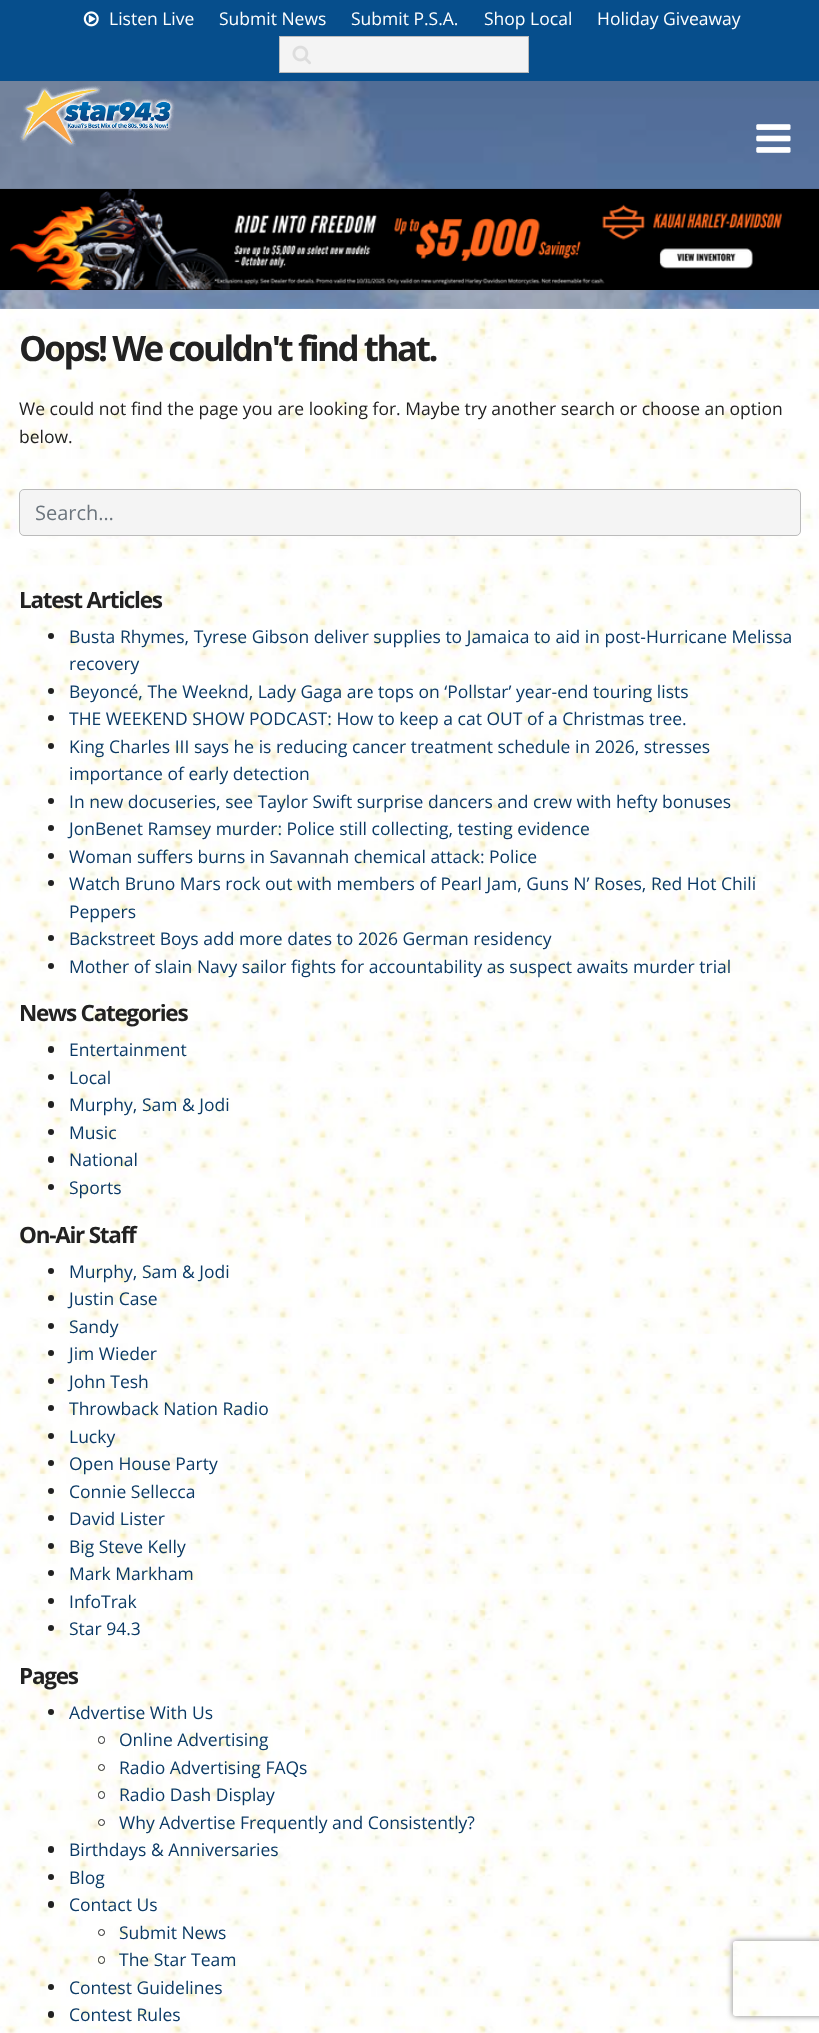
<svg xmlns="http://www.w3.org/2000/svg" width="819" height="2033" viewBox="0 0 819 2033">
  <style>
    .t1 { font: 17.5px Open Sans; fill: #fff; }
    .t2 { font: bold 35px Open Sans; letter-spacing: -2.5px; fill: #222; }
    .t3 { font: 17.5px Open Sans; fill: #222; }
    .t4 { font: 20px Open Sans; fill: #6c757d; }
    .t5 { font: bold 22.5px Open Sans; letter-spacing: -1.25px; fill: #222; }
    .t6 { font: 17.5px Open Sans; fill: #0b3a65; }
  </style>
  <defs>
    <clipPath id="clip1"><path d="M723 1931H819V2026H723ZM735.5 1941H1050.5C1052 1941 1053 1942 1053 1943.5V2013.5C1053 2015 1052 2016 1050.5 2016H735.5C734 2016 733 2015 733 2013.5V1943.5C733 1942 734 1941 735.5 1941Z" clip-rule="evenodd"/></clipPath>
  </defs>
  <rect width="100%" height="100%" fill="#fff"/>
  <image x="0" y="81" width="819" height="228" href="images/1.png"/>
  <rect x="0" y="0" width="819" height="81" fill="#064e8c"/>
  <image x="83" y="11" width="16" height="16" href="images/2.png"/>
  <text x="109" y="25" class="t1">Listen Live</text>
  <text x="219" y="25" class="t1">Submit News</text>
  <text x="351" y="25" class="t1">Submit P.S.A.</text>
  <text x="484" y="25" class="t1">Shop Local</text>
  <text x="597" y="25" class="t1">Holiday Giveaway</text>
  <rect x="279.5" y="36.5" width="249" height="36" fill="#f4f4f4" stroke="#bbb"/>
  <image x="292" y="45" width="19" height="20" href="images/3.png"/>
  <image x="0" y="308" width="819" height="1725" href="images/7.png"/>
  <rect x="0" y="81" width="819" height="228" fill="#ffffff38"/>
  <image x="19" y="85" width="156" height="62" href="images/4.png"/>
  <image x="0" y="188" width="819" height="102" href="images/5.png"/>
  <image x="756" y="124" width="35" height="29" href="images/6.png"/>
  <text x="19" y="361" class="t2">Oops! We couldn't find that.</text>
  <text x="19" y="415" class="t3">We could not find the page you are looking for. Maybe try another search or choose an option</text>
  <text x="19" y="443" class="t3">below.</text>
  <rect x="19.5" y="489.5" width="781" height="46" rx="4.5" fill="#f4f4f4" stroke="#bbb"/>
  <text x="35" y="520" class="t4">Search…</text>
  <text x="19" y="608" class="t5">Latest Articles</text>
  <circle cx="51" cy="636" r="3" fill="#222"/>
  <text x="69" y="643" class="t6">Busta Rhymes, Tyrese Gibson deliver supplies to Jamaica to aid in post-Hurricane Melissa</text>
  <text x="69" y="670" class="t6">recovery</text>
  <circle cx="51" cy="691" r="3" fill="#222"/>
  <text x="69" y="698" class="t6">Beyoncé, The Weeknd, Lady Gaga are tops on ‘Pollstar’ year-end touring lists</text>
  <circle cx="51" cy="718" r="3" fill="#222"/>
  <text x="69" y="725" class="t6">THE WEEKEND SHOW PODCAST: How to keep a cat OUT of a Christmas tree.</text>
  <circle cx="51" cy="746" r="3" fill="#222"/>
  <text x="69" y="753" class="t6">King Charles III says he is reducing cancer treatment schedule in 2026, stresses</text>
  <text x="69" y="780" class="t6">importance of early detection</text>
  <circle cx="51" cy="801" r="3" fill="#222"/>
  <text x="69" y="808" class="t6">In new docuseries, see Taylor Swift surprise dancers and crew with hefty bonuses</text>
  <circle cx="51" cy="828" r="3" fill="#222"/>
  <text x="69" y="835" class="t6">JonBenet Ramsey murder: Police still collecting, testing evidence</text>
  <circle cx="51" cy="856" r="3" fill="#222"/>
  <text x="69" y="863" class="t6">Woman suffers burns in Savannah chemical attack: Police</text>
  <circle cx="51" cy="883" r="3" fill="#222"/>
  <text x="69" y="890" class="t6">Watch Bruno Mars rock out with members of Pearl Jam, Guns N’ Roses, Red Hot Chili</text>
  <text x="69" y="918" class="t6">Peppers</text>
  <circle cx="51" cy="938" r="3" fill="#222"/>
  <text x="69" y="945" class="t6">Backstreet Boys add more dates to 2026 German residency</text>
  <circle cx="51" cy="966" r="3" fill="#222"/>
  <text x="69" y="973" class="t6">Mother of slain Navy sailor fights for accountability as suspect awaits murder trial</text>
  <text x="19" y="1021" class="t5">News Categories</text>
  <rect x="48" y="1046" width="6" height="7" rx="3" fill="#222"/>
  <text x="69" y="1056" class="t6">Entertainment</text>
  <circle cx="51" cy="1077" r="3" fill="#222"/>
  <text x="69" y="1084" class="t6">Local</text>
  <rect x="48" y="1101" width="6" height="7" rx="3" fill="#222"/>
  <text x="69" y="1111" class="t6">Murphy, Sam &amp; Jodi</text>
  <circle cx="51" cy="1132" r="3" fill="#222"/>
  <text x="69" y="1139" class="t6">Music</text>
  <rect x="48" y="1156" width="6" height="7" rx="3" fill="#222"/>
  <text x="69" y="1166" class="t6">National</text>
  <circle cx="51" cy="1187" r="3" fill="#222"/>
  <text x="69" y="1194" class="t6">Sports</text>
  <text x="19" y="1243" class="t5">On-Air Staff</text>
  <circle cx="51" cy="1271" r="3" fill="#222"/>
  <text x="69" y="1278" class="t6">Murphy, Sam &amp; Jodi</text>
  <circle cx="51" cy="1298" r="3" fill="#222"/>
  <text x="69" y="1305" class="t6">Justin Case</text>
  <circle cx="51" cy="1326" r="3" fill="#222"/>
  <text x="69" y="1333" class="t6">Sandy</text>
  <circle cx="51" cy="1353" r="3" fill="#222"/>
  <text x="69" y="1360" class="t6">Jim Wieder</text>
  <circle cx="51" cy="1381" r="3" fill="#222"/>
  <text x="69" y="1388" class="t6">John Tesh</text>
  <circle cx="51" cy="1408" r="3" fill="#222"/>
  <text x="69" y="1415" class="t6">Throwback Nation Radio</text>
  <circle cx="51" cy="1436" r="3" fill="#222"/>
  <text x="69" y="1443" class="t6">Lucky</text>
  <circle cx="51" cy="1463" r="3" fill="#222"/>
  <text x="69" y="1470" class="t6">Open House Party</text>
  <circle cx="51" cy="1491" r="3" fill="#222"/>
  <text x="69" y="1498" class="t6">Connie Sellecca</text>
  <circle cx="51" cy="1518" r="3" fill="#222"/>
  <text x="69" y="1525" class="t6">David Lister</text>
  <circle cx="51" cy="1546" r="3" fill="#222"/>
  <text x="69" y="1553" class="t6">Big Steve Kelly</text>
  <circle cx="51" cy="1573" r="3" fill="#222"/>
  <text x="69" y="1580" class="t6">Mark Markham</text>
  <circle cx="51" cy="1601" r="3" fill="#222"/>
  <text x="69" y="1608" class="t6">InfoTrak</text>
  <circle cx="51" cy="1628" r="3" fill="#222"/>
  <text x="69" y="1635" class="t6">Star 94.3</text>
  <text x="19" y="1684" class="t5">Pages</text>
  <circle cx="51" cy="1712" r="3" fill="#222"/>
  <text x="69" y="1719" class="t6">Advertise With Us</text>
  <rect x="98.5" y="1736.5" width="6" height="7" rx="3" fill="none" stroke="#222"/>
  <text x="119" y="1746" class="t6">Online Advertising</text>
  <circle cx="101.5" cy="1767.5" r="3" fill="none" stroke="#222"/>
  <text x="119" y="1774" class="t6">Radio Advertising FAQs</text>
  <rect x="98.5" y="1791.5" width="6" height="7" rx="3" fill="none" stroke="#222"/>
  <text x="119" y="1801" class="t6">Radio Dash Display</text>
  <circle cx="101.5" cy="1822.5" r="3" fill="none" stroke="#222"/>
  <text x="119" y="1829" class="t6">Why Advertise Frequently and Consistently?</text>
  <rect x="48" y="1846" width="6" height="7" rx="3" fill="#222"/>
  <text x="69" y="1856" class="t6">Birthdays &amp; Anniversaries</text>
  <circle cx="51" cy="1877" r="3" fill="#222"/>
  <text x="69" y="1884" class="t6">Blog</text>
  <rect x="48" y="1901" width="6" height="7" rx="3" fill="#222"/>
  <text x="69" y="1911" class="t6">Contact Us</text>
  <circle cx="101.5" cy="1932.5" r="3" fill="none" stroke="#222"/>
  <text x="119" y="1939" class="t6">Submit News</text>
  <rect x="98.5" y="1956.5" width="6" height="7" rx="3" fill="none" stroke="#222"/>
  <text x="119" y="1966" class="t6">The Star Team</text>
  <circle cx="51" cy="1987" r="3" fill="#222"/>
  <text x="69" y="1994" class="t6">Contest Guidelines</text>
  <rect x="48" y="2011" width="6" height="7" rx="3" fill="#222"/>
  <text x="69" y="2021" class="t6">Contest Rules</text>
  <g clip-path="url(#clip1)">
    <rect x="733" y="1941" width="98" height="75" rx="2.5" fill="#808080" filter="blur(3px)"/>
  </g>
</svg>
